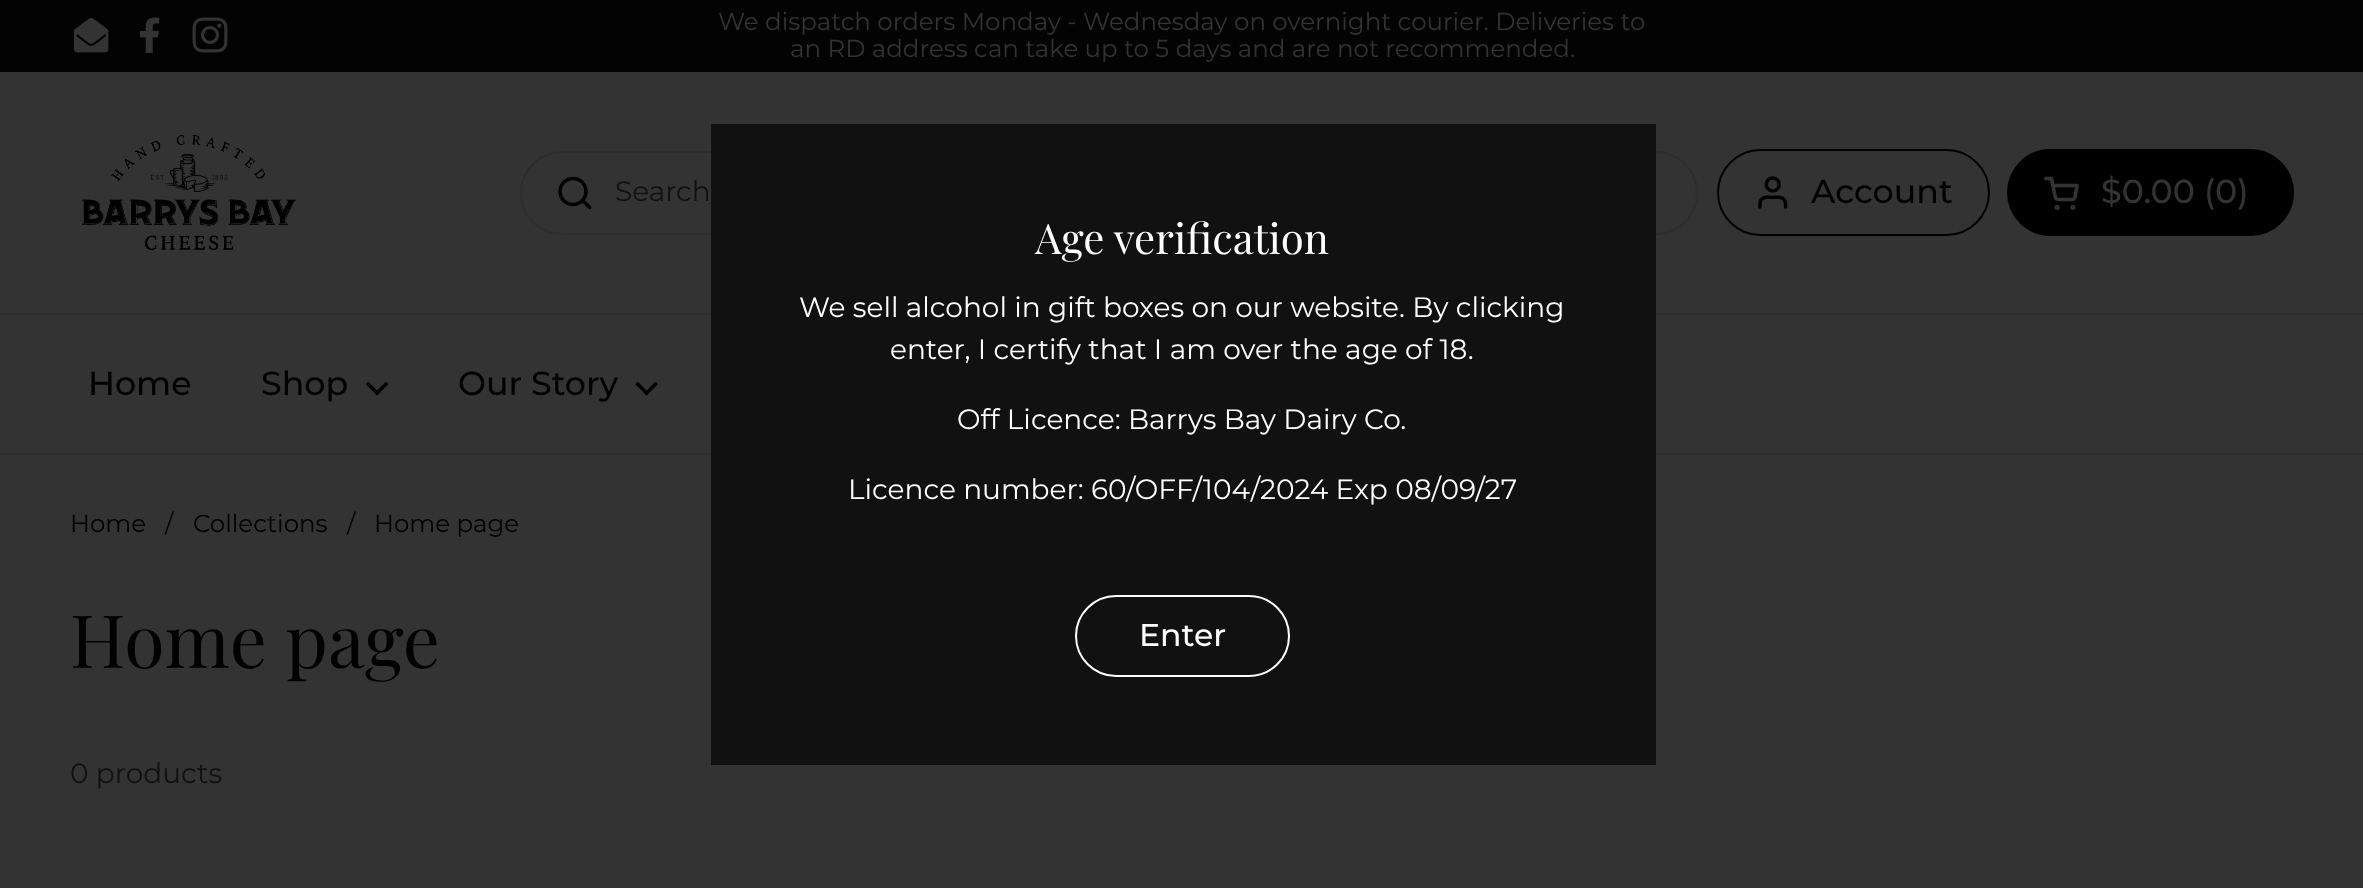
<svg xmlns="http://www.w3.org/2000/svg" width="2363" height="888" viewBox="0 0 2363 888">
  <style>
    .t1 { font: 24.5px Montserrat; fill: #333; }
    .t2 { font: 28px Montserrat; fill: #111; }
    .t3 { font: 500 33.25px Montserrat; fill: #000; }
    .t4 { font: 500 33.25px Montserrat; fill: #333; }
    .t5 { font: 24.5px Montserrat; fill: #000; }
    .t6 { font: 73.5px Playfair Display; fill: #000; }
    .t7 { font: 42px Playfair Display; fill: #fff; }
    .t8 { font: 28px Montserrat; fill: #fff; }
    .t9 { font: 500 31.5px Montserrat; fill: #fff; }
  </style>
  <rect width="100%" height="100%" fill="#333"/>
  <rect x="0" y="0" width="2363" height="72" fill="#030303"/>
  <image x="73" y="18" width="36" height="35" href="images/1.png"/>
  <image x="140" y="17" width="20" height="36" href="images/2.png"/>
  <image x="192" y="17" width="36" height="36" href="images/3.png"/>
  <text x="718" y="30" class="t1">We dispatch orders Monday - Wednesday on overnight courier. Deliveries to</text>
  <text x="790" y="57" class="t1">an RD address can take up to 5 days and are not recommended.</text>
  <rect x="0" y="313" width="2363" height="2" fill="#2e2e2e"/>
  <image x="82" y="134" width="214" height="117" href="images/4.png"/>
  <rect x="521" y="152" width="1176" height="82" rx="41" fill="none" stroke="#2e2e2e" stroke-width="2"/>
  <image x="558" y="176" width="34" height="34" href="images/5.png"/>
  <text x="615" y="201" class="t2">Search</text>
  <rect x="1718" y="150" width="271" height="85" rx="42.5" fill="none" stroke="#000" stroke-width="2"/>
  <image x="1758" y="176" width="30" height="33" href="images/6.png"/>
  <text x="1811" y="203" class="t3">Account</text>
  <rect x="2008" y="150" width="285" height="85" rx="42.5" fill="#000" stroke="#000" stroke-width="2"/>
  <image x="2044" y="176" width="35" height="34" href="images/7.png"/>
  <text x="2101" y="203" class="t4">$0.00 (0)</text>
  <rect x="0" y="453" width="2363" height="2" fill="#2e2e2e"/>
  <text x="88" y="395" class="t3">Home</text>
  <text x="261" y="395" class="t3">Shop</text>
  <image x="366" y="382" width="23" height="14" href="images/8.png"/>
  <text x="458" y="395" class="t3">Our Story</text>
  <image x="635" y="382" width="23" height="14" href="images/9.png"/>
  <text x="70" y="532" class="t5">Home</text>
  <text x="165" y="532" class="t5">/</text>
  <text x="193" y="532" class="t5">Collections</text>
  <text x="347" y="532" class="t5">/</text>
  <text x="374" y="532" class="t5">Home page</text>
  <text x="70" y="668" class="t6">Home page</text>
  <text x="70" y="783" class="t2">0 products</text>
  <rect x="711" y="124" width="945" height="641" fill="#111"/>
  <text x="1035" y="254" class="t7">Age verification</text>
  <text x="799" y="317" class="t8">We sell alcohol in gift boxes on our website. By clicking</text>
  <text x="890" y="359" class="t8">enter, I certify that I am over the age of 18.</text>
  <text x="957" y="429" class="t8">Off Licence: Barrys Bay Dairy Co.</text>
  <text x="848" y="499" class="t8">Licence number: 60/OFF/104/2024 Exp 08/09/27</text>
  <rect x="1076" y="596" width="213" height="80" rx="40" fill="none" stroke="#fff" stroke-width="2"/>
  <text x="1139" y="646" class="t9">Enter</text>
</svg>
